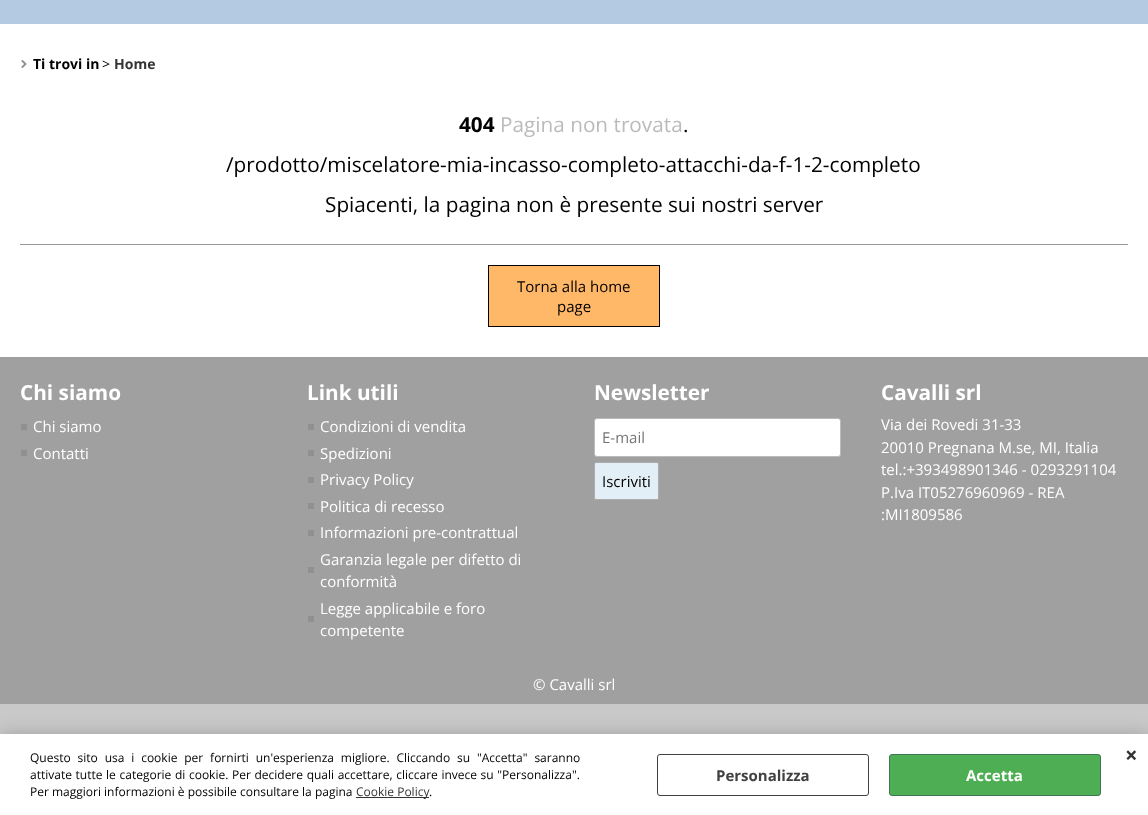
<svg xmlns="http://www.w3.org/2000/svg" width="1148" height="815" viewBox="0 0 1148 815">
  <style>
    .t1 { font: bold 14px Open Sans; fill: #000; }
    .t2 { font: 14px Open Sans; fill: #000; }
    .t3 { font: bold 14px Open Sans; fill: #343434; }
    .t4 { font: bold 20.75px Open Sans; fill: #000; }
    .t5 { font: 20.75px Open Sans; fill: #bbb; }
    .t6 { font: 20.75px Open Sans; fill: #000; }
    .t7 { font: 15px Open Sans; fill: #000; }
    .t8 { font: bold 20.75px Open Sans; fill: #fff; }
    .t9 { font: 15px Open Sans; fill: #fff; }
    .t10 { font: 15px Open Sans; fill: #757575; }
    .t11 { font: 12px Open Sans; fill: #000; }
    .t12 { font: 12px Open Sans; fill: #343434; }
    .t13 { font: bold 15px Open Sans; fill: #424141; }
    .t14 { font: bold 15px Open Sans; fill: #fff; }
    .t15 { font: bold 22px Open Sans; fill: #343434; }
  </style>
  <rect width="100%" height="100%" fill="#c9c9c9"/>
  <rect x="0" y="0" width="1148" height="24" fill="#b3cae2"/>
  <rect x="0" y="24" width="1148" height="333" fill="#fff"/>
  <image x="21" y="60" width="6" height="8" href="images/1.png"/>
  <text x="33" y="69" class="t1">Ti trovi in</text>
  <text x="102" y="69" class="t2">&gt;</text>
  <text x="114" y="69" class="t3">Home</text>
  <rect x="20" y="244" width="1108" height="1" fill="#999"/>
  <text x="459" y="132" class="t4">404</text>
  <text x="500" y="132" class="t5">Pagina non trovata</text>
  <text x="683" y="132" class="t6">.</text>
  <text x="226" y="172" class="t6">/prodotto/miscelatore-mia-incasso-completo-attacchi-da-f-1-2-completo</text>
  <text x="325" y="212" class="t6">Spiacenti, la pagina non è presente sui nostri server</text>
  <rect x="488.5" y="265.5" width="171" height="61" fill="#ffb768" stroke="#000"/>
  <text x="517" y="292" class="t7">Torna alla home</text>
  <text x="557" y="312" class="t7">page</text>
  <rect x="0" y="357" width="1148" height="347" fill="#a0a0a0"/>
  <text x="20" y="400" class="t8">Chi siamo</text>
  <rect x="21" y="424" width="6" height="6" fill="#909090"/>
  <text x="33" y="432" class="t9">Chi siamo</text>
  <rect x="21" y="450" width="6" height="6" fill="#909090"/>
  <text x="33" y="459" class="t9">Contatti</text>
  <text x="307" y="400" class="t8">Link utili</text>
  <rect x="308" y="424" width="6" height="6" fill="#909090"/>
  <text x="320" y="432" class="t9">Condizioni di vendita</text>
  <rect x="308" y="450" width="6" height="6" fill="#909090"/>
  <text x="320" y="459" class="t9">Spedizioni</text>
  <rect x="308" y="477" width="6" height="6" fill="#909090"/>
  <text x="320" y="485" class="t9">Privacy Policy</text>
  <rect x="308" y="503" width="6" height="6" fill="#909090"/>
  <text x="320" y="512" class="t9">Politica di recesso</text>
  <rect x="308" y="530" width="6" height="6" fill="#909090"/>
  <text x="320" y="538" class="t9">Informazioni pre-contrattual</text>
  <rect x="308" y="567" width="6" height="6" fill="#909090"/>
  <text x="320" y="565" class="t9">Garanzia legale per difetto di</text>
  <text x="320" y="587" class="t9">conformità</text>
  <rect x="308" y="616" width="6" height="6" fill="#909090"/>
  <text x="320" y="614" class="t9">Legge applicabile e foro</text>
  <text x="320" y="636" class="t9">competente</text>
  <text x="594" y="400" class="t8">Newsletter</text>
  <rect x="594.5" y="418.5" width="246" height="38" rx="2.5" fill="#fff" stroke="#bbb"/>
  <text x="602" y="443" class="t10">E-mail</text>
  <rect x="594.5" y="462.5" width="64" height="37" rx="1.5" fill="#e2eff6" stroke="#adadad"/>
  <text x="602" y="487" class="t7">Iscriviti</text>
  <text x="881" y="400" class="t8">Cavalli srl</text>
  <text x="881" y="430" class="t9">Via dei Rovedi 31-33</text>
  <text x="881" y="453" class="t9">20010 Pregnana M.se, MI, Italia</text>
  <text x="881" y="475" class="t9">tel.:+393498901346 - 0293291104</text>
  <text x="881" y="498" class="t9">P.Iva IT05276960969 - REA</text>
  <text x="881" y="520" class="t9">:MI1809586</text>
  <text x="533" y="690" class="t9">© Cavalli srl</text>
  <rect x="0" y="734" width="1148" height="81" fill="#00000033" filter="blur(9px)"/>
  <rect x="0" y="734" width="1148" height="81" fill="#fff"/>
  <text x="30" y="762" word-spacing="3.75" class="t11">Questo sito usa i cookie per fornirti un'esperienza migliore. Cliccando su "Accetta" saranno</text>
  <text x="30" y="779" word-spacing="0.5" class="t11">attivate tutte le categorie di cookie. Per decidere quali accettare, cliccare invece su "Personalizza".</text>
  <text x="30" y="796" class="t11">Per maggiori informazioni è possibile consultare la pagina</text>
  <rect x="356" y="797" width="73" height="1" fill="#343434"/>
  <text x="356" y="796" class="t12">Cookie Policy</text>
  <text x="429" y="796" class="t11">.</text>
  <rect x="657.5" y="754.5" width="211" height="41" rx="2.5" fill="none" stroke="#424141"/>
  <text x="716" y="781" class="t13">Personalizza</text>
  <rect x="889.5" y="754.5" width="211" height="41" rx="2.5" fill="#4eae54" stroke="#3f7755"/>
  <text x="966" y="781" class="t14">Accetta</text>
  <text x="1125" y="763" class="t15">×</text>
</svg>
